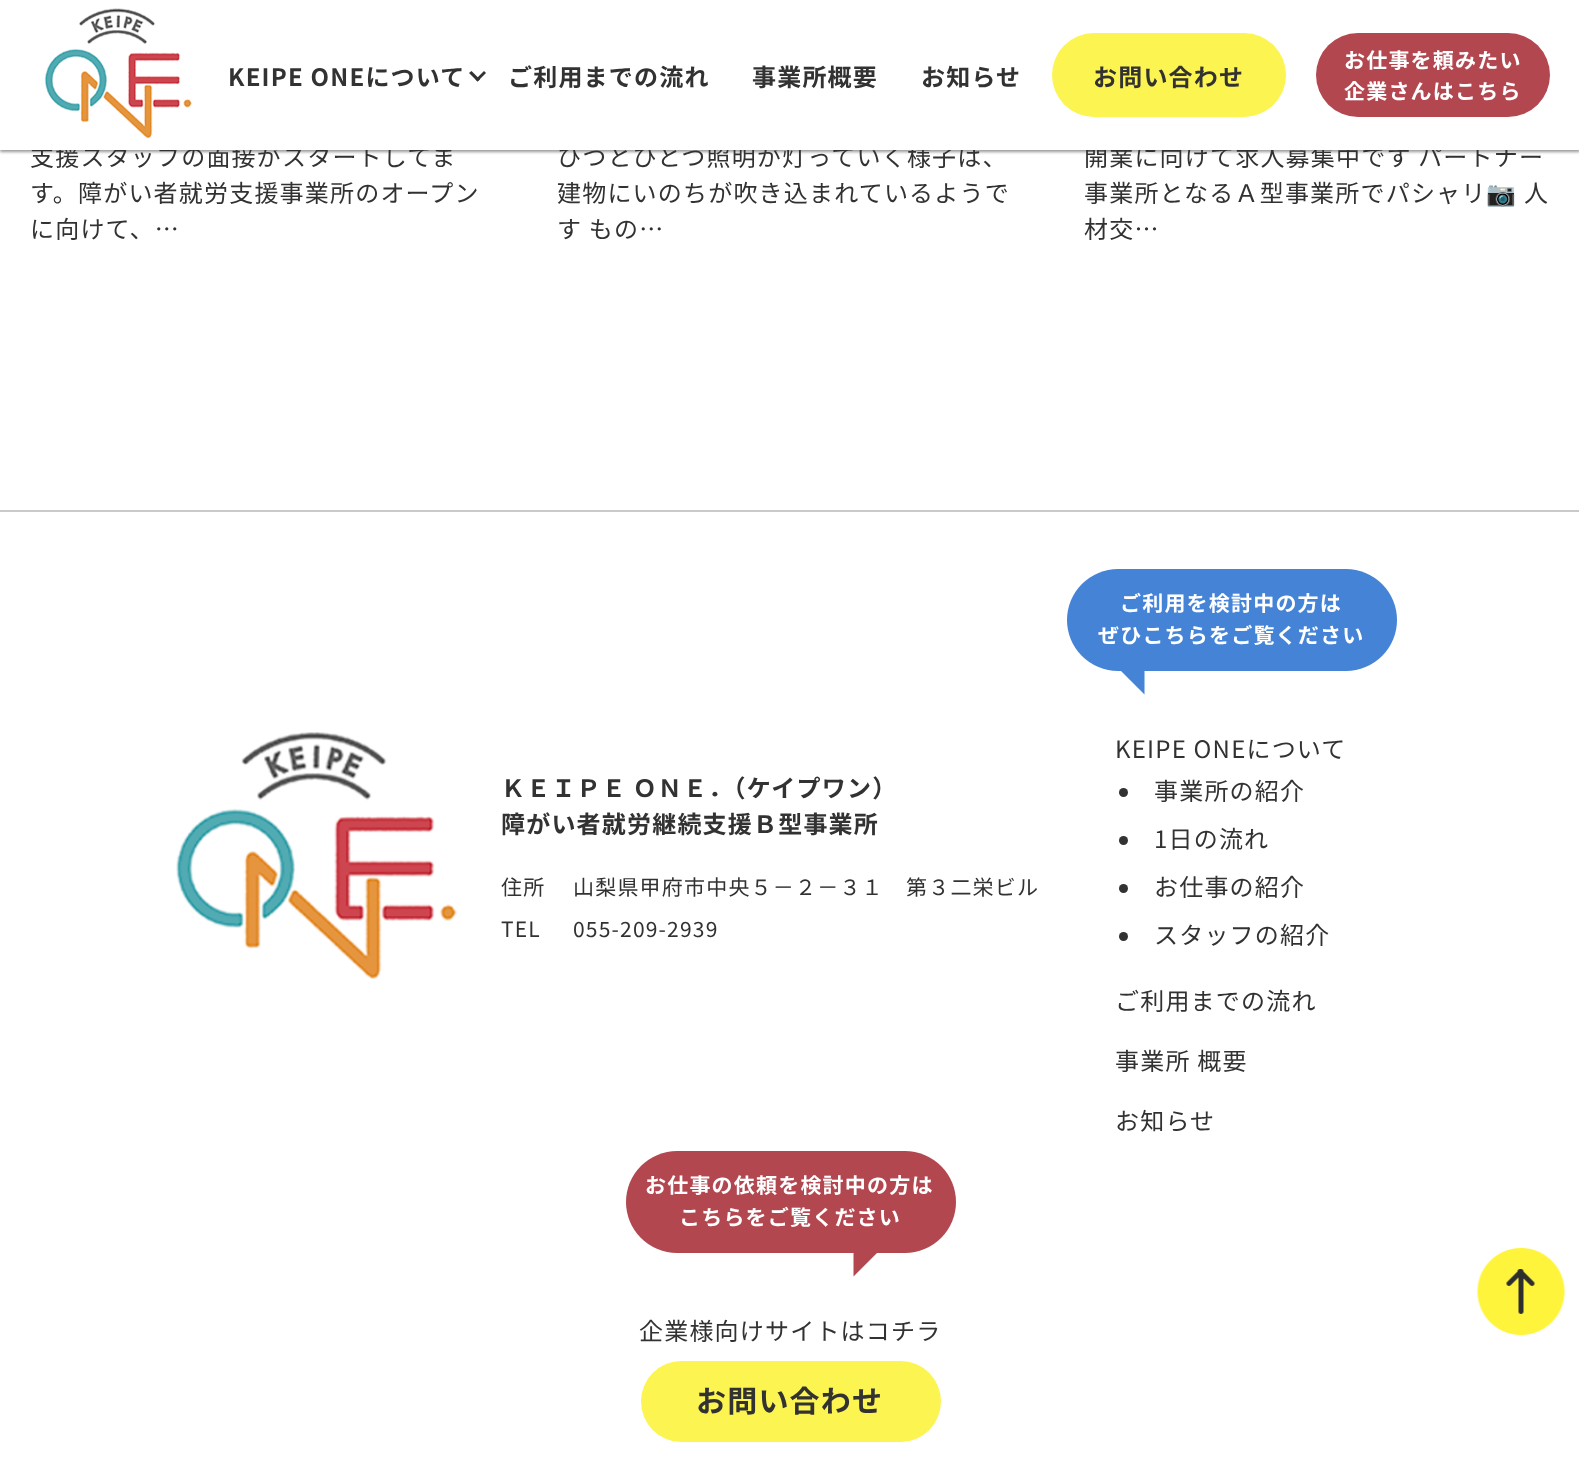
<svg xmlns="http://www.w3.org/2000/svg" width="1579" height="1484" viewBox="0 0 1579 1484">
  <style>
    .t1 { font: 24px Noto Sans JP; letter-spacing: 1.2px; fill: #323232; }
    .t2 { font: bold 24px Noto Sans JP; letter-spacing: 1.2px; fill: #323232; }
    .t3 { font: bold 21px Noto Sans JP; letter-spacing: 1.2px; fill: #fff; }
    .t4 { font: 24px Noto Color Emoji; letter-spacing: 1.2px; fill: #323232; }
    .t5 { font: 21px Noto Sans JP; letter-spacing: 1.2px; fill: #323232; }
    .t6 { font: bold 30px Noto Sans JP; letter-spacing: 1.2px; fill: #323232; }
  </style>
  <rect width="100%" height="100%" fill="#fff"/>
  <rect x="0" y="2" width="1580" height="150" fill="#00000066" filter="blur(1.5px)"/>
  <text x="30" y="166" class="t1">支援スタッフの面接がスタートしてま</text>
  <text x="557" y="166" class="t1">ひつとひとつ照明が灯っていく様子は、</text>
  <text x="1084" y="166" class="t1">開業に向けて求人募集中です パートナー</text>
  <rect x="0" y="0" width="1579" height="150" fill="#fff"/>
  <image x="44" y="8" width="148" height="131" href="images/1.png"/>
  <text x="228" y="86" class="t2">KEIPE ONEについて</text>
  <path d="M484 71L486 73L477.5 81.5L475.5 79.5Z" fill="#323232"/>
  <path d="M471.5 71L480 79.5L477.5 81.5L469 73Z" fill="#323232"/>
  <text x="508" y="86" class="t2">ご利用までの流れ</text>
  <text x="752" y="86" class="t2">事業所概要</text>
  <text x="921" y="86" class="t2">お知らせ</text>
  <rect x="1052" y="33" width="234" height="84" rx="42" fill="#fcf451"/>
  <text x="1093" y="86" class="t2">お問い合わせ</text>
  <rect x="1316" y="33" width="234" height="84" rx="42" fill="#b24750"/>
  <text x="1344" y="68" class="t3">お仕事を頼みたい</text>
  <text x="1344" y="99" class="t3">企業さんはこちら</text>
  <text x="30" y="202" class="t1">す。障がい者就労支援事業所のオープン</text>
  <text x="30" y="238" class="t1">に向けて、…</text>
  <text x="557" y="202" class="t1">建物にいのちが吹き込まれているようで</text>
  <text x="557" y="238" class="t1">す もの…</text>
  <text x="1084" y="202" class="t1">事業所となるＡ型事業所でパシャリ</text>
  <text x="1486" y="202" class="t4">📷</text>
  <text x="1524" y="202" class="t1">人</text>
  <text x="1084" y="238" class="t1">材交…</text>
  <rect x="0" y="510" width="1579" height="2" fill="#c9c9c9"/>
  <image x="176" y="732" width="281" height="247" href="images/2.png"/>
  <text x="501" y="797" word-spacing="-1" class="t2">ＫＥＩＰＥ ＯＮＥ．（ケイプワン）</text>
  <text x="501" y="833" class="t2">障がい者就労継続支援Ｂ型事業所</text>
  <text x="501" y="895" class="t5">住所</text>
  <text x="573" y="895" class="t5">山梨県甲府市中央５－２－３１　第３二栄ビル</text>
  <text x="501" y="937" class="t5">TEL</text>
  <text x="573" y="937" class="t5">055-209-2939</text>
  <rect x="1067" y="569" width="330" height="102" rx="51" fill="#4483d6"/>
  <text x="1120" y="611" class="t3">ご利用を検討中の方は</text>
  <text x="1098" y="643" class="t3">ぜひこちらをご覧ください</text>
  <path d="M1120.5 670.5H1144.5V694.5Z" fill="#4483d6"/>
  <text x="1115" y="758" class="t1">KEIPE ONEについて</text>
  <circle cx="1123.5" cy="792.5" r="4.5" fill="#323232"/>
  <text x="1154" y="800" class="t1">事業所の紹介</text>
  <circle cx="1123.5" cy="840.5" r="4.5" fill="#323232"/>
  <text x="1154" y="848" class="t1">1日の流れ</text>
  <circle cx="1123.5" cy="888.5" r="4.5" fill="#323232"/>
  <text x="1154" y="896" class="t1">お仕事の紹介</text>
  <circle cx="1123.5" cy="936.5" r="4.5" fill="#323232"/>
  <text x="1154" y="944" class="t1">スタッフの紹介</text>
  <text x="1115" y="1010" class="t1">ご利用までの流れ</text>
  <text x="1115" y="1070" class="t1">事業所 概要</text>
  <text x="1115" y="1130" class="t1">お知らせ</text>
  <rect x="626" y="1151" width="330" height="102" rx="51" fill="#b24750"/>
  <text x="645" y="1193" class="t3">お仕事の依頼を検討中の方は</text>
  <text x="679" y="1225" class="t3">こちらをご覧ください</text>
  <path d="M853.5 1252.5H877.5L853.5 1276.5Z" fill="#b24750"/>
  <text x="639" y="1340" class="t1">企業様向けサイトはコチラ</text>
  <rect x="641" y="1361" width="300" height="81" rx="40.5" fill="#fcf451"/>
  <text x="696" y="1412" class="t6">お問い合わせ</text>
  <image x="1477" y="1248" width="88" height="87" href="images/3.png"/>
</svg>
